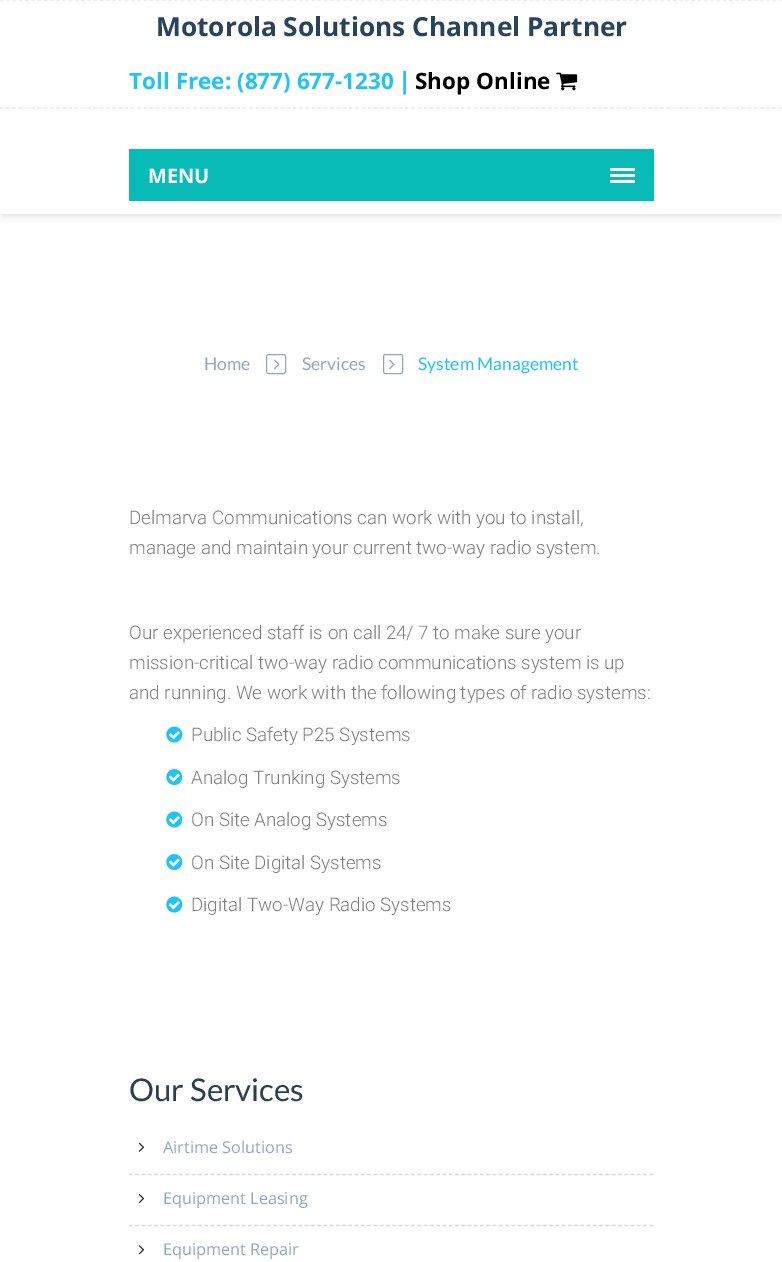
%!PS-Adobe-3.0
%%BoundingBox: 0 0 782 1262
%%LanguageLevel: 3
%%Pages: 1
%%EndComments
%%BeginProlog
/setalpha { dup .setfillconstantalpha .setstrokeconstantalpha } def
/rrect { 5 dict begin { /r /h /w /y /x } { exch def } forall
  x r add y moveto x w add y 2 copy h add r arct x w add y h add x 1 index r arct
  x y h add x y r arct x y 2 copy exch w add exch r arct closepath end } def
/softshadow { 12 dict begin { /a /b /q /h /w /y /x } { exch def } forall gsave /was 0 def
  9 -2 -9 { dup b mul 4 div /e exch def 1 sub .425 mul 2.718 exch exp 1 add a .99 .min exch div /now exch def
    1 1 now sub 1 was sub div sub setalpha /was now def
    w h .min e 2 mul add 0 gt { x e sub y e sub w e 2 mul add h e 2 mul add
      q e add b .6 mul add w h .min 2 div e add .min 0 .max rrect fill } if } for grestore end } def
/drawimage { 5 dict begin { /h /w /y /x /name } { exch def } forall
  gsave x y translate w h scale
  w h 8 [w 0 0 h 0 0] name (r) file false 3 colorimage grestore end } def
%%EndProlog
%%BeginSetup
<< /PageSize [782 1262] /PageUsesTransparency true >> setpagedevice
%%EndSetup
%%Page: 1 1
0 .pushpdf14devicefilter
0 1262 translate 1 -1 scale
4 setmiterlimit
1 setgray
0 0 782 1262 rectfill
0.929 setgray
1.2 setlinewidth
[3.75 2.48] 0 setdash
newpath 0 0.5 moveto 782.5 0.5 lineto stroke
newpath 0 108 moveto 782.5 108 lineto stroke
(images/1.raw) 556 72 22 19 drawimage
0 setgray
3 115 777 100 0 4 0.15 softshadow
1 setgray
0 109 782 105 rectfill
0.031 0.733 0.718 setrgbcolor
129 149 525 52 rectfill
1 setgray
610 174 25 3 rectfill
610 168 25 3 rectfill
610 180 25 3 rectfill
0.573 0.655 0.733 setrgbcolor
1 setlinewidth
[] 0 setdash
266.5 354.5 19 19 2 rrect stroke
(images/2.raw) 274 359 6 11 drawimage
383.5 354.5 19 19 2 rrect stroke
(images/2.raw) 389 359 6 11 drawimage
(images/3.raw) 166 726 17 17 drawimage
(images/4.raw) 166 769 17 17 drawimage
(images/3.raw) 166 811 17 17 drawimage
(images/4.raw) 166 854 17 17 drawimage
(images/3.raw) 166 896 17 17 drawimage
0.851 setgray
1.2 setlinewidth
[3.75 2.52] 0 setdash
newpath 129 1174.5 moveto 654 1174.5 lineto stroke
(images/5.raw) 138 1142 7 10 drawimage
newpath 129 1225.5 moveto 654 1225.5 lineto stroke
(images/6.raw) 138 1194 7 9 drawimage
(images/7.raw) 138 1245 7 10 drawimage
/OpenSans-Bold [26.25 0 0 -26.25 0 0] selectfont
0.165 0.263 0.365 setrgbcolor
156 36 moveto (Motorola Solutions Channel Partner) show
/OpenSans-Bold [22.5 0 0 -22.5 0 0] selectfont
0.129 0.761 0.973 setrgbcolor
129 89 moveto (Toll Free: \(877\) 677-1230) show
/OpenSans-Bold [24 0 0 -24 0 0] selectfont
398 89 moveto (|) show
/OpenSans-Bold [22.5 0 0 -22.5 0 0] selectfont
0 setgray
415 89 moveto (Shop Online) show
/OpenSans-Bold [20 0 0 -20 0 0] selectfont
1 setgray
148 183 moveto (MENU) show
/Lato-Regular [17.5 0 0 -17.5 0 0] selectfont
0.573 0.655 0.733 setrgbcolor
204 370 moveto (Home) show
302 370 moveto (Services) show
0.129 0.761 0.973 setrgbcolor
418 370 moveto (System Management) show
/Roboto-Light [18.75 0 0 -18.75 0 0] selectfont
0.494 setgray
129 524 moveto (Delmarva Communications can work with you to install,) show
129 554 moveto (manage and maintain your current two-way radio system.) show
129 639 moveto (Our experienced staff is on call 24/ 7 to make sure your) show
129 669 moveto (mission-critical two-way radio communications system is up) show
129 699 moveto (and running. We work with the following types of radio systems:) show
191 741 moveto (Public Safety P25 Systems) show
191 784 moveto (Analog Trunking Systems) show
191 826 moveto (On Site Analog Systems) show
191 869 moveto (On Site Digital Systems) show
191 911 moveto (Digital Two-Way Radio Systems) show
/Lato-Regular [31.25 0 0 -31.25 0 0] selectfont
0.173 0.243 0.314 setrgbcolor
129 1101 moveto (Our Services) show
/OpenSans-Regular [16.25 0 0 -16.25 0 0] selectfont
0.573 0.655 0.733 setrgbcolor
163 1153 moveto (Airtime Solutions) show
163 1204 moveto (Equipment Leasing) show
163 1255 moveto (Equipment Repair) show
.poppdf14devicefilter showpage
%%EOF
